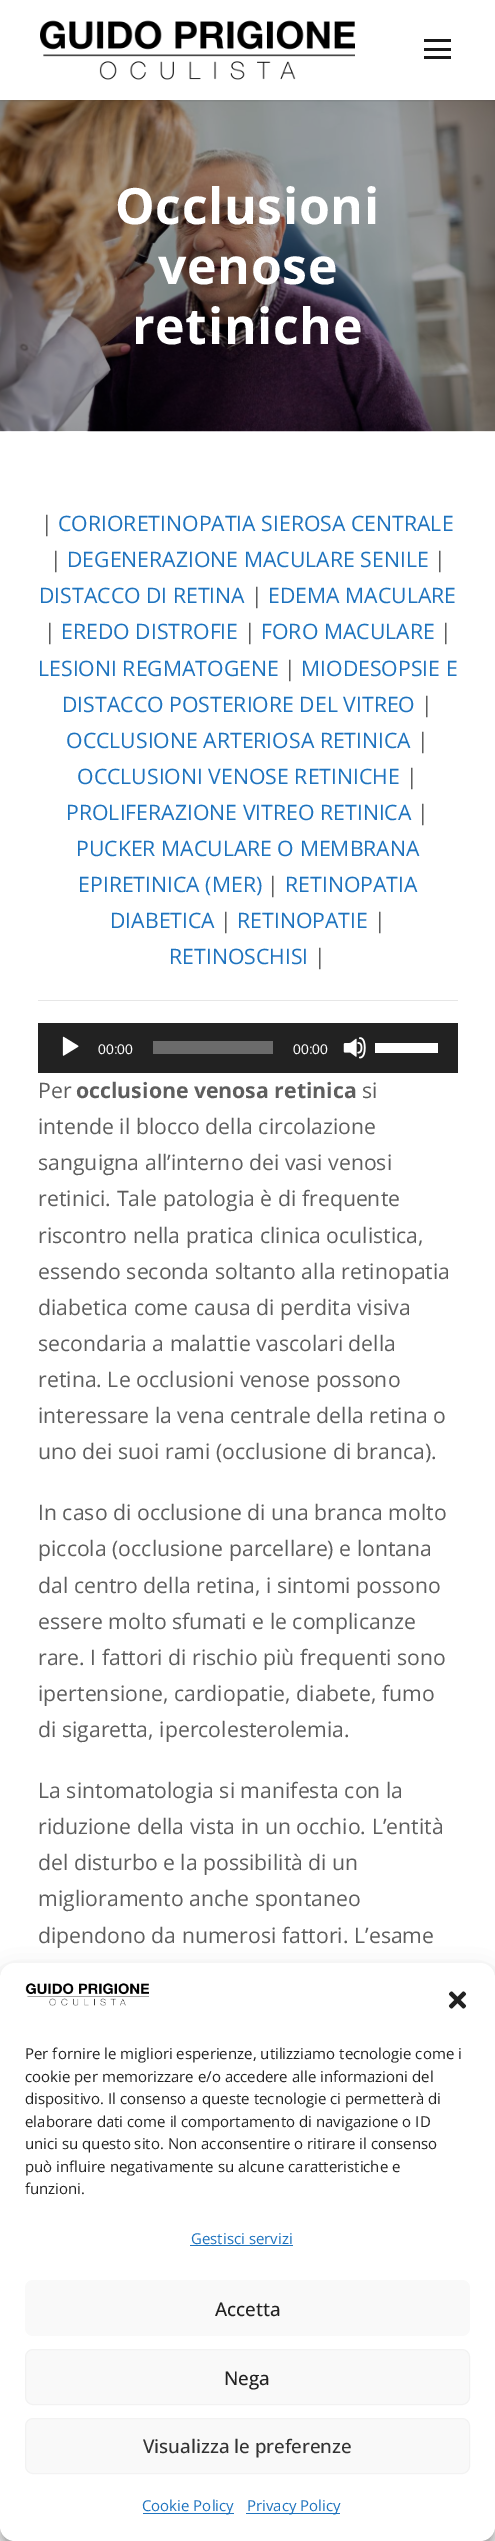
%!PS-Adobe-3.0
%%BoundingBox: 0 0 495 2541
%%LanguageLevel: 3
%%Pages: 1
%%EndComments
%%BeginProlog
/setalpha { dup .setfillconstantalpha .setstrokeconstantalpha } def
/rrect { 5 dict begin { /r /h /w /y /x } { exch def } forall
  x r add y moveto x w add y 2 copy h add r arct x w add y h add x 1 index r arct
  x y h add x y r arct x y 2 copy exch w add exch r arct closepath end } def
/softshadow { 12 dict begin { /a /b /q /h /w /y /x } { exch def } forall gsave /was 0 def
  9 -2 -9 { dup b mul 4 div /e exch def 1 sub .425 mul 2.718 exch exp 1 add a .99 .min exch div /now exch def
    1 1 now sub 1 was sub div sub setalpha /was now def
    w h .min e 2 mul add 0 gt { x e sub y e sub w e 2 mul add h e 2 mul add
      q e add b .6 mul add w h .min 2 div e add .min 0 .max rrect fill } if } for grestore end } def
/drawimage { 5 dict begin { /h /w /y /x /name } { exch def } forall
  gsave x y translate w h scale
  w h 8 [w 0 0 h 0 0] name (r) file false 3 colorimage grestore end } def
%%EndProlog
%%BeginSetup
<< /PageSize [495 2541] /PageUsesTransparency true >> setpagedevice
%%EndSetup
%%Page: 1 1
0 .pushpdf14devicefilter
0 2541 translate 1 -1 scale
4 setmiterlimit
1 setgray
0 0 495 2541 rectfill
(images/2.raw) 0 100 495 332 drawimage
gsave
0 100 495 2 rectclip
0 setgray
0 1 495 100 0 1 0.1 softshadow
grestore
(images/1.raw) 40 20 315 60 drawimage
0.098 setgray
424 39 27 3 rectfill
424 48 27 3 rectfill
424 56 27 3 rectfill
0.902 setgray
38 1000 420 1 rectfill
0.133 setgray
38 1023 420 50 rectfill
(images/3.raw) 62 1036 17 20 drawimage
0.42 setgray
153 1041 120 13 rectfill
(images/4.raw) 343 1037 23 22 drawimage
1 setgray
375 1043 63 10 rectfill
0 setgray
0 1970 495 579 15 4 0.23 softshadow
0 1975 495 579 15 12.5 0.19 softshadow
1 setgray
0 1963 495 578 15 rrect fill
(images/5.raw) 25 1983 124 23 drawimage
(images/6.raw) 448 1991 19 18 drawimage
0.118 0.451 0.745 setrgbcolor
190 2245 103 1 rectfill
0.976 setgray
25 2280 445 56 8 rrect fill
25.5 2349.5 444 55 7.5 rrect gsave fill grestore
0.949 setgray
stroke
0.976 setgray
25.5 2418.5 444 55 7.5 rrect gsave fill grestore
0.949 setgray
stroke
0.118 0.451 0.745 setrgbcolor
143 2513 91 1 rectfill
246 2513 94 1 rectfill
/OpenSans-Bold [50 0 0 -50 0 0] selectfont
1 setgray
115 224 moveto 0.6 0 (Occlusioni) ashow
158 284 moveto 0.6 0 (venose) ashow
132 344 moveto 0.6 0 (retiniche) ashow
/OpenSans-Regular [21.25 0 0 -21.25 0 0] selectfont
0.369 setgray
41 531 moveto (|) show
0.118 0.451 0.745 setrgbcolor
58 531 moveto (CORIORETINOPATIA SIEROSA CENTRALE) show
0.369 setgray
50 567 moveto (|) show
0.118 0.451 0.745 setrgbcolor
67 567 moveto (DEGENERAZIONE MACULARE SENILE) show
0.369 setgray
434 567 moveto (|) show
0.118 0.451 0.745 setrgbcolor
39 603 moveto (DISTACCO DI RETINA) show
0.369 setgray
251 603 moveto (|) show
0.118 0.451 0.745 setrgbcolor
268 603 moveto (EDEMA MACULARE) show
0.369 setgray
44 639 moveto (|) show
0.118 0.451 0.745 setrgbcolor
61 639 moveto (EREDO DISTROFIE) show
0.369 setgray
244 639 moveto (|) show
0.118 0.451 0.745 setrgbcolor
261 639 moveto (FORO MACULARE) show
0.369 setgray
440 639 moveto (|) show
0.118 0.451 0.745 setrgbcolor
38 676 moveto (LESIONI REGMATOGENE) show
0.369 setgray
284 676 moveto (|) show
0.118 0.451 0.745 setrgbcolor
301 676 moveto (MIODESOPSIE E) show
62 712 moveto (DISTACCO POSTERIORE DEL VITREO) show
0.369 setgray
421 712 moveto (|) show
0.118 0.451 0.745 setrgbcolor
66 748 moveto (OCCLUSIONE ARTERIOSA RETINICA) show
0.369 setgray
417 748 moveto (|) show
0.118 0.451 0.745 setrgbcolor
77 784 moveto (OCCLUSIONI VENOSE RETINICHE) show
0.369 setgray
406 784 moveto (|) show
0.118 0.451 0.745 setrgbcolor
66 820 moveto (PROLIFERAZIONE VITREO RETINICA) show
0.369 setgray
417 820 moveto (|) show
0.118 0.451 0.745 setrgbcolor
76 856 moveto (PUCKER MACULARE O MEMBRANA) show
78 892 moveto (EPIRETINICA \(MER\)) show
0.369 setgray
267 892 moveto (|) show
0.118 0.451 0.745 setrgbcolor
285 892 moveto (RETINOPATIA) show
110 928 moveto (DIABETICA) show
0.369 setgray
220 928 moveto (|) show
0.118 0.451 0.745 setrgbcolor
237 928 moveto (RETINOPATIE) show
0.369 setgray
374 928 moveto (|) show
0.118 0.451 0.745 setrgbcolor
169 964 moveto (RETINOSCHISI) show
0.369 setgray
314 964 moveto (|) show
/LiberationSans-Regular [14 0 0 -14 0 0] selectfont
1 setgray
98 1054 moveto (00:00) show
293 1054 moveto (00:00) show
/OpenSans-Regular [21.25 0 0 -21.25 0 0] selectfont
0.369 setgray
38 1098 moveto (Per) show
/OpenSans-Bold [21.25 0 0 -21.25 0 0] selectfont
76 1098 moveto (occlusione venosa retinica) show
/OpenSans-Regular [21.25 0 0 -21.25 0 0] selectfont
362 1098 moveto (si) show
38 1134 moveto (intende il blocco della circolazione) show
38 1170 moveto (sanguigna all’interno dei vasi venosi) show
38 1206 moveto (retinici. Tale patologia è di frequente) show
38 1243 moveto (riscontro nella pratica clinica oculistica,) show
38 1279 moveto (essendo seconda soltanto alla retinopatia) show
38 1315 moveto (diabetica come causa di perdita visiva) show
38 1351 moveto (secondaria a malattie vascolari della) show
38 1387 moveto (retina. Le occlusioni venose possono) show
38 1423 moveto (interessare la vena centrale della retina o) show
38 1459 moveto (uno dei suoi rami \(occlusione di branca\).) show
38 1520 moveto (In caso di occlusione di una branca molto) show
38 1556 moveto (piccola \(occlusione parcellare\) e lontana) show
38 1593 moveto (dal centro della retina, i sintomi possono) show
38 1629 moveto (essere molto sfumati e le complicanze) show
38 1665 moveto (rare. I fattori di rischio più frequenti sono) show
38 1701 moveto (ipertensione, cardiopatie, diabete, fumo) show
38 1737 moveto (di sigaretta, ipercolesterolemia.) show
38 1798 moveto (La sintomatologia si manifesta con la) show
38 1834 moveto (riduzione della vista in un occhio. L’entità) show
38 1870 moveto (del disturbo e la possibilità di un) show
38 1906 moveto (miglioramento anche spontaneo) show
38 1943 moveto (dipendono da numerosi fattori. L’esame) show
/OpenSans-Regular [15 0 0 -15 0 0] selectfont
0.133 setgray
25 2059 moveto (Per fornire le migliori esperienze, utilizziamo tecnologie come i) show
25 2082 moveto (cookie per memorizzare e/o accedere alle informazioni del) show
25 2104 moveto (dispositivo. Il consenso a queste tecnologie ci permetterà di) show
25 2127 moveto (elaborare dati come il comportamento di navigazione o ID) show
25 2149 moveto (unici su questo sito. Non acconsentire o ritirare il consenso) show
25 2172 moveto (può influire negativamente su alcune caratteristiche e) show
25 2194 moveto (funzioni.) show
0.118 0.451 0.745 setrgbcolor
191 2244 moveto (Gestisci servizi) show
/OpenSans-Medium [18.75 0 0 -18.75 0 0] selectfont
0.133 setgray
215 2316 moveto (Accetta) show
224 2385 moveto (Nega) show
0.2 setgray
143 2453 moveto (Visualizza le preferenze) show
/OpenSans-Regular [15 0 0 -15 0 0] selectfont
0.118 0.451 0.745 setrgbcolor
142 2511 moveto (Cookie Policy) show
247 2511 moveto (Privacy Policy) show
.poppdf14devicefilter showpage
%%EOF
